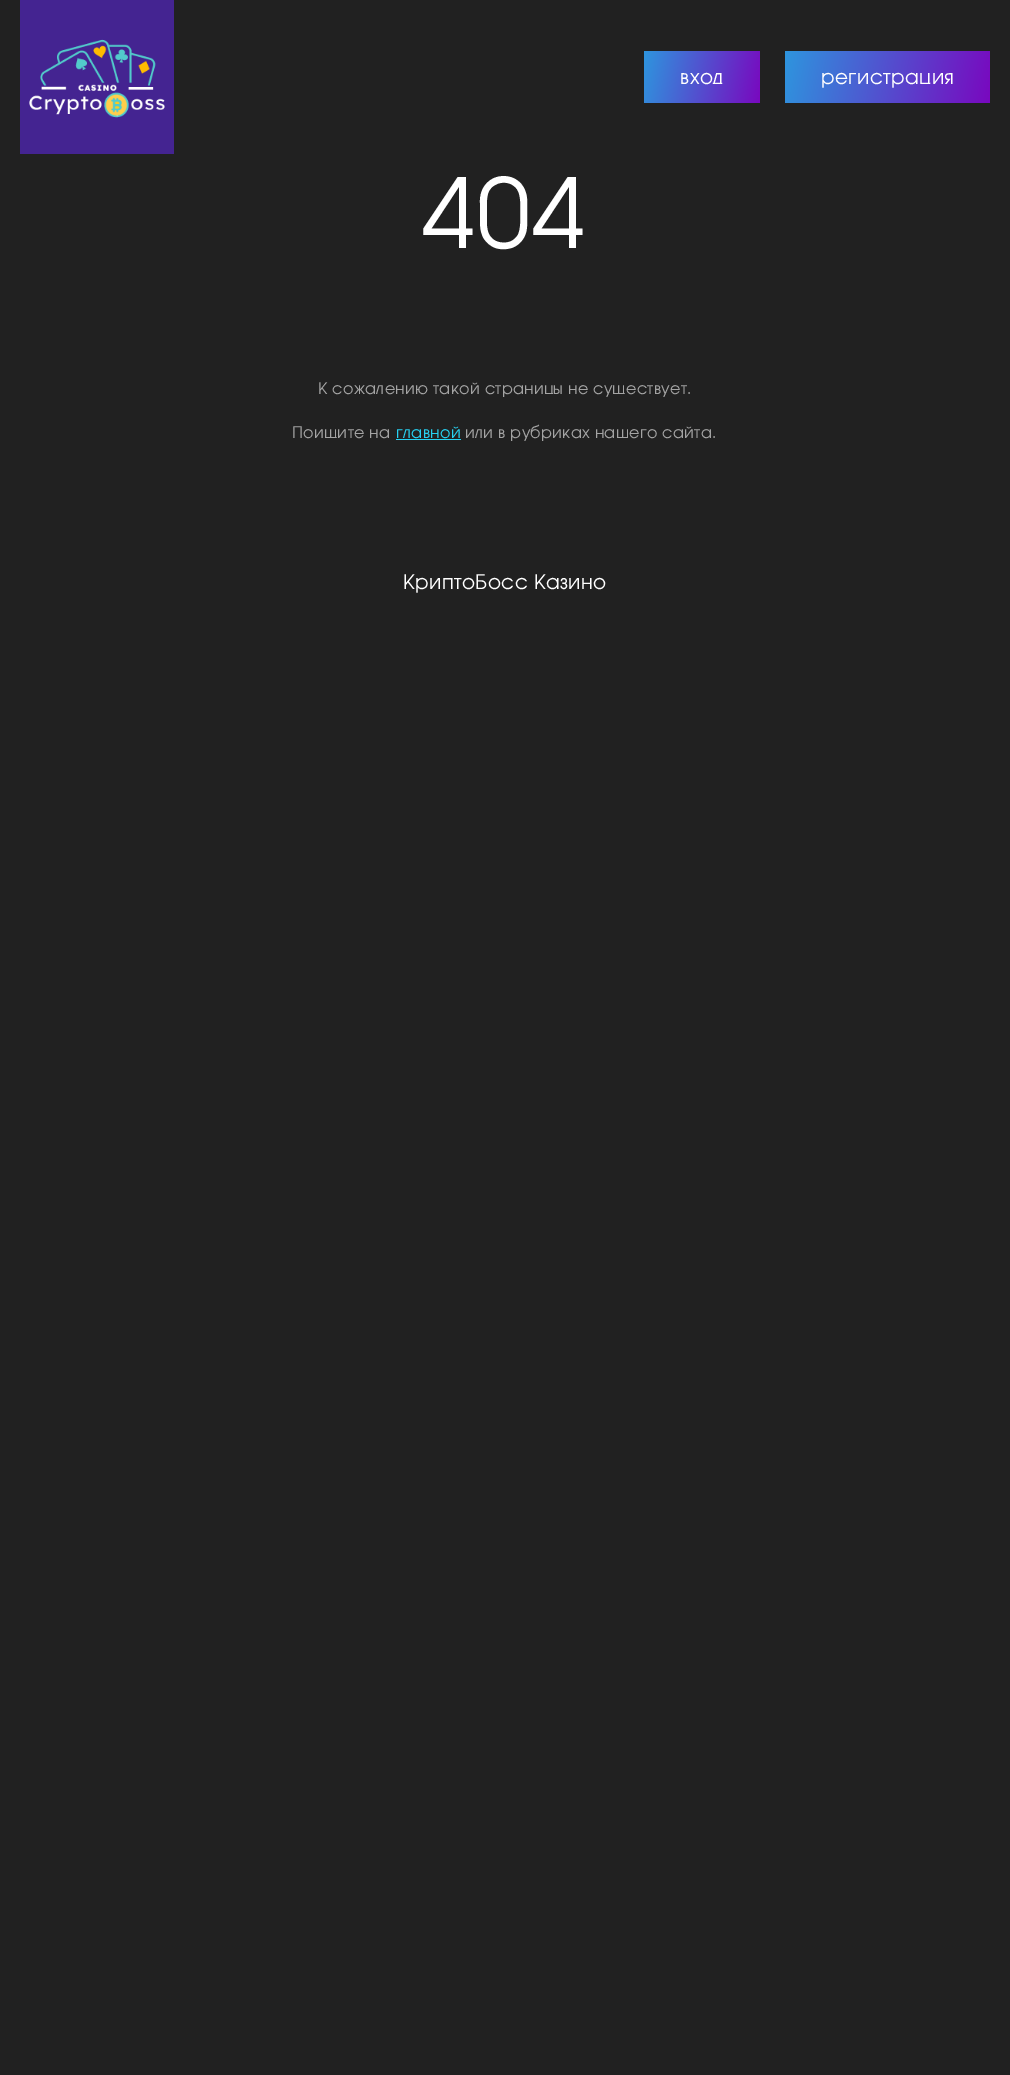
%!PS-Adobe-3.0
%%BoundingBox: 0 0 1010 2075
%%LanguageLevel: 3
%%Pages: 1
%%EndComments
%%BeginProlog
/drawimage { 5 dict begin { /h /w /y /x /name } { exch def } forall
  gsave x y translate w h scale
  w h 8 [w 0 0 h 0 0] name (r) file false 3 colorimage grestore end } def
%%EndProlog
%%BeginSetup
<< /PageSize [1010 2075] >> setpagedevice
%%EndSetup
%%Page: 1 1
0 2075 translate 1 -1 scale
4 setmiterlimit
0.129 setgray
0 0 1010 2075 rectfill
(images/1.raw) 20 0 154 154 drawimage
gsave newpath 644 51 moveto 760 51 lineto 760 103 lineto 644 103 lineto closepath clip newpath
<< /ShadingType 2 /ColorSpace /DeviceRGB /Coords [641 65 763 89] /Extend [true true] /Function << /FunctionType 2 /Domain [0 1] /C0 [0.18 0.584 0.871] /C1 [0.475 0.031 0.749] /N 1 >> >> shfill grestore
gsave newpath 785 51 moveto 990 51 lineto 990 103 lineto 785 103 lineto closepath clip newpath
<< /ShadingType 2 /ColorSpace /DeviceRGB /Coords [784 56 991 98] /Extend [true true] /Function << /FunctionType 2 /Domain [0 1] /C0 [0.18 0.584 0.871] /C1 [0.475 0.031 0.749] /N 1 >> >> shfill grestore
0.153 0.824 0.949 setrgbcolor
396 439 65 1 rectfill
/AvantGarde-Regular [20 0 0 -20 0 0] selectfont
1 setgray
680 84 moveto 0.4 0 (вход) ashow
821 84 moveto 0.4 0 (регистрация) ashow
/AvantGarde-Regular [96 0 0 -96 0 0] selectfont
422 248 moveto 2 0 (404) ashow
/AvantGarde-Regular [16 0 0 -16 0 0] selectfont
0.643 setgray
318 394 moveto 0.3 0 (К сожалению такой страницы не существует.) ashow
292 438 moveto 0.3 0 (Поищите на) ashow
0.153 0.824 0.949 setrgbcolor
396 438 moveto 0.3 0 (главной) ashow
0.643 setgray
465 438 moveto 0.3 0 (или в рубриках нашего сайта.) ashow
/AvantGarde-Regular [20 0 0 -20 0 0] selectfont
1 setgray
403 589 moveto 0.4 0 (КриптоБосс Казино) ashow
showpage
%%EOF
